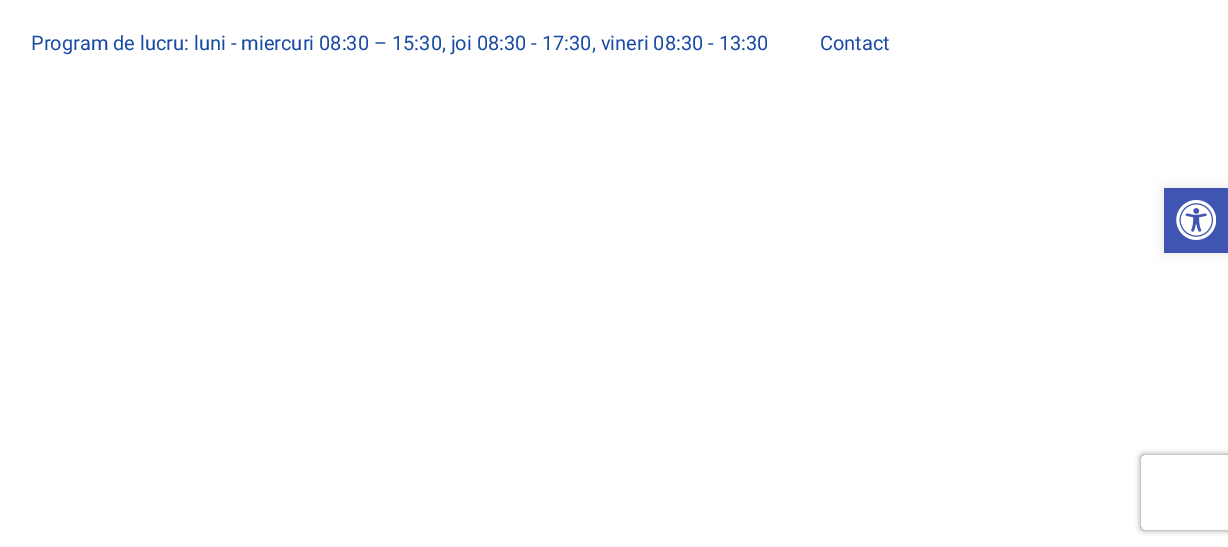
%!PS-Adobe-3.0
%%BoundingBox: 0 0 1228 547
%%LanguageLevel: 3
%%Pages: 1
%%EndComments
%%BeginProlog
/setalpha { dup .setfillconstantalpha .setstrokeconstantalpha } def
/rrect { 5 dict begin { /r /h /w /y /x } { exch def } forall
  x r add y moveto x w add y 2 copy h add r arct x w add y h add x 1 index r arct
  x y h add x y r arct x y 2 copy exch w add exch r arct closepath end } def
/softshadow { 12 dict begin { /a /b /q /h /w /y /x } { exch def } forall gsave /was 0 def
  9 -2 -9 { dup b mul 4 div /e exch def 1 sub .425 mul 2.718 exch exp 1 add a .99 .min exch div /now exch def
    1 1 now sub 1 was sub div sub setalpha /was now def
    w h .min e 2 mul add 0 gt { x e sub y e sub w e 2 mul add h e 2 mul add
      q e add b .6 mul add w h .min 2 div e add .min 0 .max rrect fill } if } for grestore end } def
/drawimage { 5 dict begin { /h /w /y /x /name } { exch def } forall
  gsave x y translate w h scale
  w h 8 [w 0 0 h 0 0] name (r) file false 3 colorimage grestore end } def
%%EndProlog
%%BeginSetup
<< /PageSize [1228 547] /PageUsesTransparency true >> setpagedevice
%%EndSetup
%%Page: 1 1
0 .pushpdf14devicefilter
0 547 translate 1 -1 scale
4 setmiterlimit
1 setgray
0 0 1228 547 rectfill
0 setgray
1164 188 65 65 0 6 0.1 softshadow
0.251 0.329 0.698 setrgbcolor
1164 188 64 65 rectfill
(images/1.raw) 1176 200 40 40 drawimage
gsave
newpath 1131 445 moveto 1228 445 lineto 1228 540 lineto 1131 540 lineto closepath 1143.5 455 moveto 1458.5 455 lineto 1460 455 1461 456 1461 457.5 curveto 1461 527.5 lineto 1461 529 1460 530 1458.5 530 curveto 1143.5 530 lineto 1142 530 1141 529 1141 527.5 curveto 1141 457.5 lineto 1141 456 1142 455 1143.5 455 curveto closepath eoclip newpath
0.502 setgray
1141 455 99 75 2.5 3 1 softshadow
grestore
/Roboto-Regular [20 0 0 -20 0 0] selectfont
0.094 0.294 0.631 setrgbcolor
31 50 moveto (Program de lucru: luni - miercuri 08:30 – 15:30, joi 08:30 - 17:30, vineri 08:30 - 13:30) show
820 50 moveto (Contact) show
.poppdf14devicefilter showpage
%%EOF
